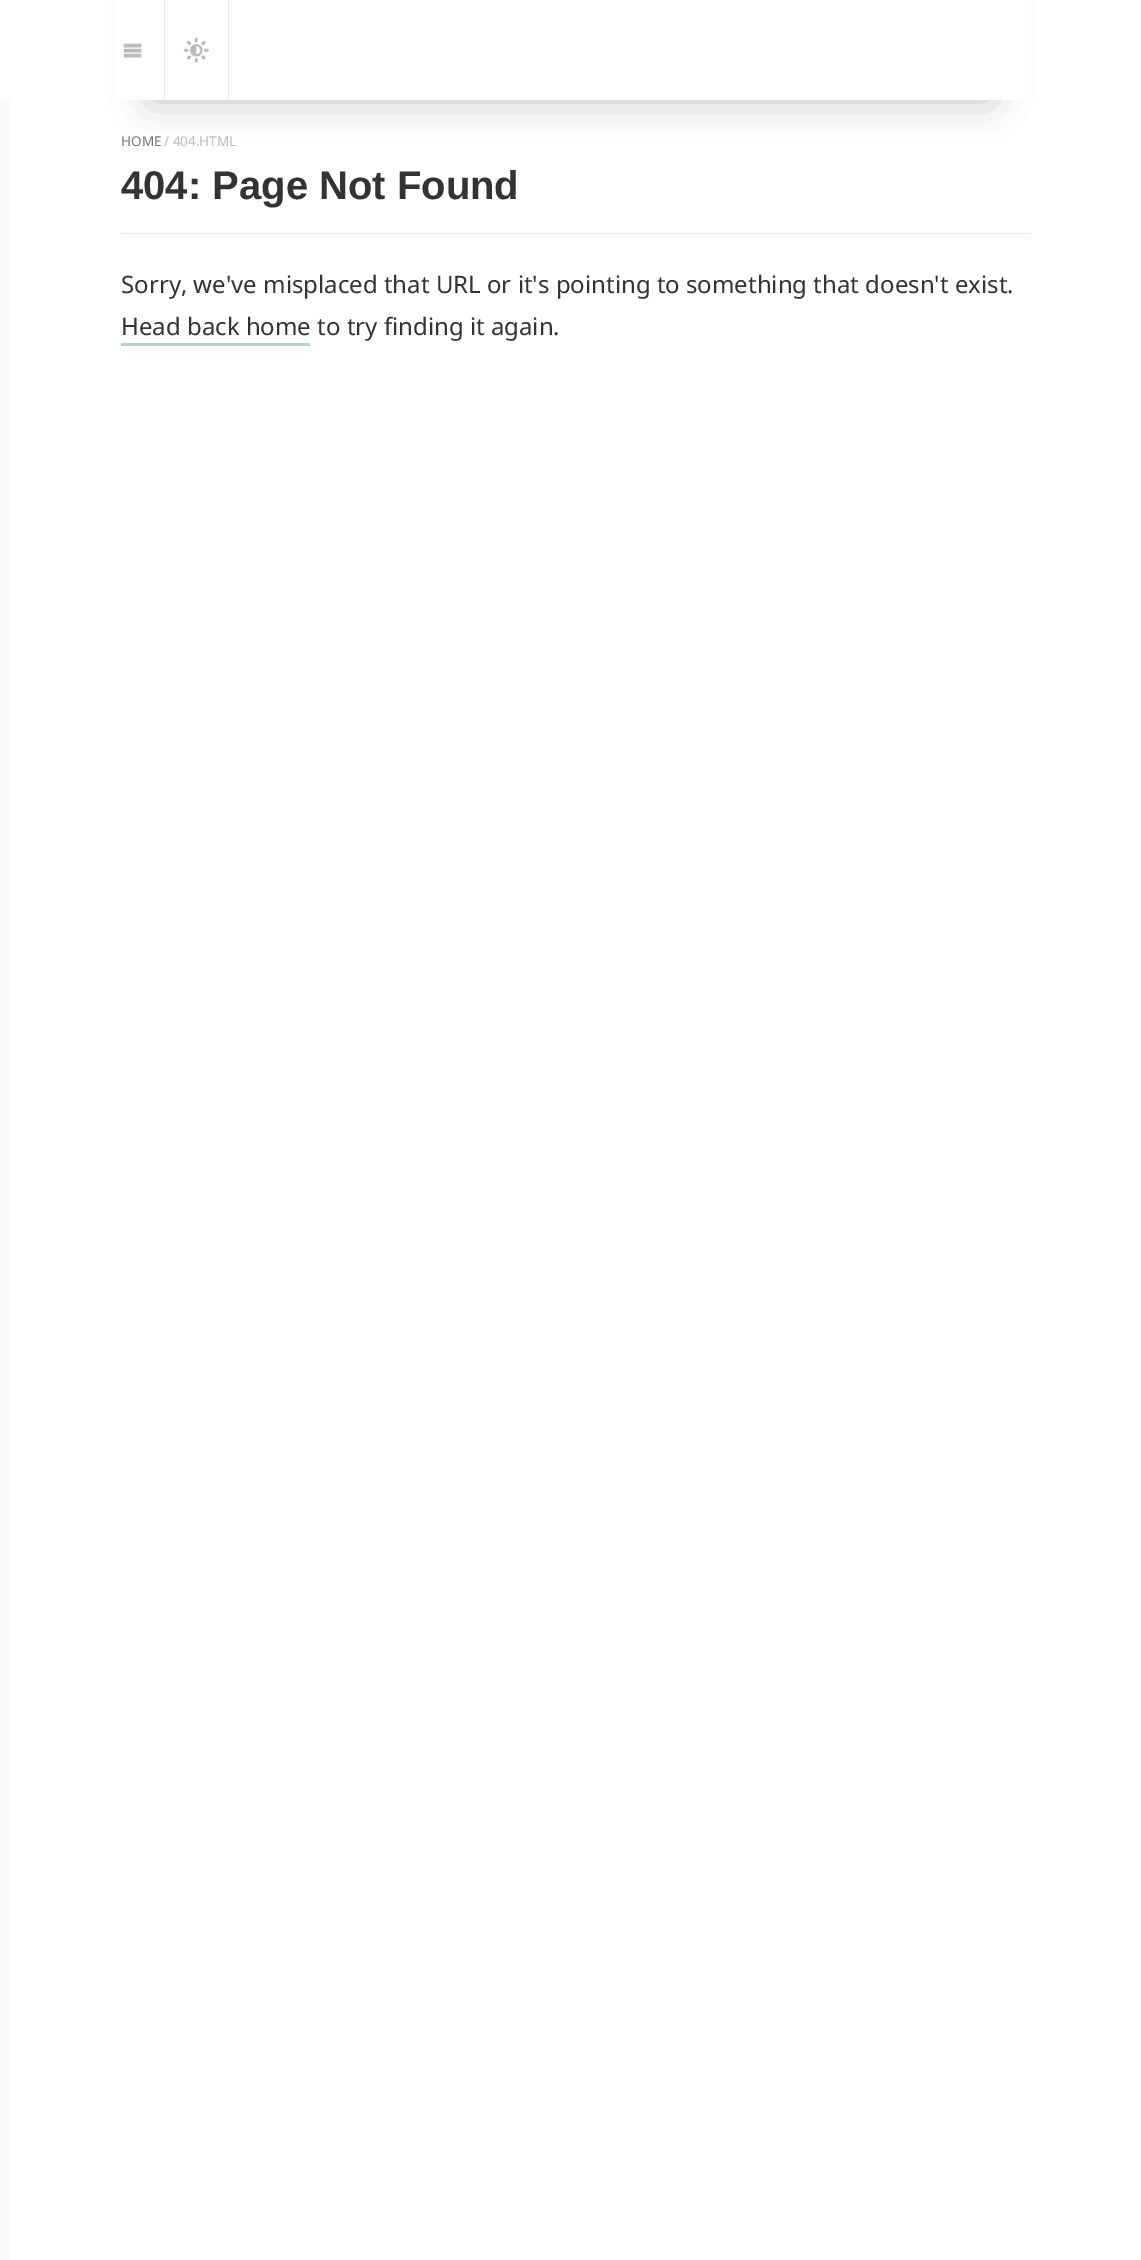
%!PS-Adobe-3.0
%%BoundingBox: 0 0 1141 2260
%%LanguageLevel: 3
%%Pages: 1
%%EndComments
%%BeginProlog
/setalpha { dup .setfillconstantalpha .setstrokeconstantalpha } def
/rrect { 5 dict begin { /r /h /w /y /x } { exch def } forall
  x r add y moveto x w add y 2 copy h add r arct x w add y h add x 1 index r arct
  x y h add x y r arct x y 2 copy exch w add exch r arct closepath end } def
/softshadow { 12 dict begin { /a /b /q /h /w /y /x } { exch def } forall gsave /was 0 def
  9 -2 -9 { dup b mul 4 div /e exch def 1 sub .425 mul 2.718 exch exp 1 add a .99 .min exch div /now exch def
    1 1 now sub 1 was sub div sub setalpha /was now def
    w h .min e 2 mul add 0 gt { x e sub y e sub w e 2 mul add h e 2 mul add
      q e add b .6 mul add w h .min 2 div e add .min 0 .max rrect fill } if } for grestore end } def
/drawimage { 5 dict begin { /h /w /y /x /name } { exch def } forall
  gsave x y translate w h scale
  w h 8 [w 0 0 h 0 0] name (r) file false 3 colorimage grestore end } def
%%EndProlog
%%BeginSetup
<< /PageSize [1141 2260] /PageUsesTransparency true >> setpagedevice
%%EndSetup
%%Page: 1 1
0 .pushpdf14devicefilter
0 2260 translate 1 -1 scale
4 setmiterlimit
1 setgray
0 0 1141 2260 rectfill
0.976 setgray
0 100 10 2160 rectfill
0 setgray
151 -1 840 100 0 20 0.25 softshadow
1 setgray
116 0 910 100 rectfill
(images/1.raw) 123 43 19 15 drawimage
0.922 setgray
228 0 1 100 rectfill
164 0 1 100 rectfill
(images/2.raw) 183 37 26 26 drawimage
121 233 910 1 rectfill
0.655 0.847 0.867 setrgbcolor
121 343 189 3 rectfill
/NotoSans-Regular [13.5 0 0 -13.5 0 0] selectfont
0.467 setgray
121 146 moveto (HOME) show
0.733 setgray
164 146 moveto (/ 404.HTML) show
/LiberationSans-Bold [40 0 0 -40 0 0] selectfont
0.2 setgray
121 199 moveto (404: Page Not Found) show
/NotoSans-Regular [24 0 0 -24 0 0] selectfont
121 293 moveto (Sorry, we've misplaced that URL or it's pointing to something that doesn't exist.) show
121 335 moveto (Head back home to try finding it again.) show
.poppdf14devicefilter showpage
%%EOF
